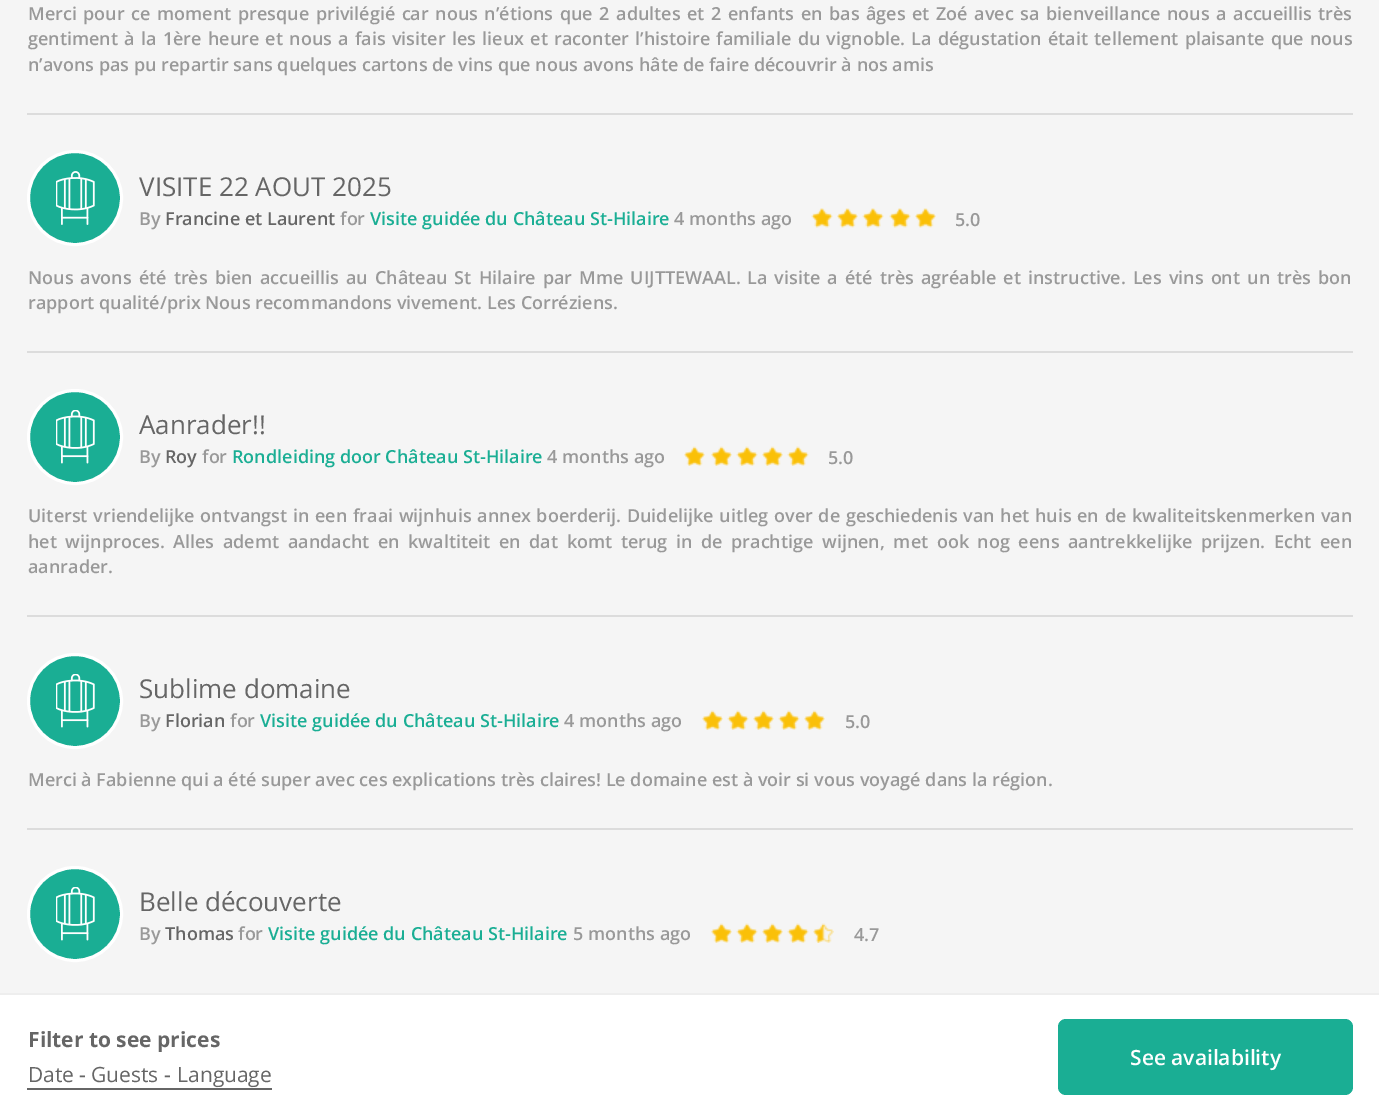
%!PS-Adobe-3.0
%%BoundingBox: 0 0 1379 1118
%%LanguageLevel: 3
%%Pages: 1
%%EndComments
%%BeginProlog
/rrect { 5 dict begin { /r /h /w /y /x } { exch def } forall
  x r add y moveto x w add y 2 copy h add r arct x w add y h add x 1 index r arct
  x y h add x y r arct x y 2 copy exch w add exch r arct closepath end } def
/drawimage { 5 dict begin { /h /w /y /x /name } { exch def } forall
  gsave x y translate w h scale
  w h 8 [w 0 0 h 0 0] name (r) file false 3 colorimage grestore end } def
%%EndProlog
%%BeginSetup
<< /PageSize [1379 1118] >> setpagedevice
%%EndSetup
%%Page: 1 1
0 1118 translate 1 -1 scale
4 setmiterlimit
0.961 setgray
0 0 1379 1118 rectfill
0.863 setgray
27 113 1326 2 rectfill
0.102 0.682 0.58 setrgbcolor
newpath 75 198 46.5 0 360 arc closepath gsave fill grestore
1 setgray
3 setlinewidth
stroke
(images/1.raw) 56 171 39 54 drawimage
(images/2.raw) 811 208 22 20 drawimage
(images/3.raw) 837 208 21 20 drawimage
(images/2.raw) 862 208 22 20 drawimage
(images/2.raw) 889 208 22 20 drawimage
(images/3.raw) 915 208 21 20 drawimage
0.863 setgray
27 351 1326 2 rectfill
0.102 0.682 0.58 setrgbcolor
newpath 75 437 46.5 0 360 arc closepath gsave fill grestore
1 setgray
stroke
(images/4.raw) 56 410 39 54 drawimage
(images/5.raw) 684 446 21 20 drawimage
(images/6.raw) 711 446 21 20 drawimage
(images/7.raw) 736 446 22 20 drawimage
(images/5.raw) 762 446 21 20 drawimage
(images/8.raw) 787 446 22 20 drawimage
0.863 setgray
27 615 1326 2 rectfill
0.102 0.682 0.58 setrgbcolor
newpath 75 701 46.5 0 360 arc closepath gsave fill grestore
1 setgray
stroke
(images/4.raw) 56 674 39 54 drawimage
(images/6.raw) 702 710 21 20 drawimage
(images/7.raw) 727 710 22 20 drawimage
(images/9.raw) 753 710 21 20 drawimage
(images/8.raw) 778 710 22 20 drawimage
(images/5.raw) 804 710 21 20 drawimage
0.863 setgray
27 828 1326 2 rectfill
0.102 0.682 0.58 setrgbcolor
newpath 75 914 46.5 0 360 arc closepath gsave fill grestore
1 setgray
stroke
(images/4.raw) 56 887 39 54 drawimage
(images/6.raw) 711 923 21 20 drawimage
(images/7.raw) 736 923 22 20 drawimage
(images/5.raw) 762 923 21 20 drawimage
(images/8.raw) 787 923 22 20 drawimage
(images/10.raw) 813 923 21 20 drawimage
0 995 1379 123 rectfill
0.933 setgray
0 993 1379 2 rectfill
0.4 setgray
27 1088 245 2 rectfill
0.102 0.682 0.58 setrgbcolor
1058 1019 295 76 8 rrect fill
/OpenSans-SemiBold [18 0 0 -18 0 0] selectfont
0.6 setgray
28 20 moveto 1.9 0 32 (Merci pour ce moment presque privilégié car nous n’étions que 2 adultes et 2 enfants en bas âges et Zoé avec sa bienveillance nous a accueillis) widthshow
1318 20 moveto (très) show
28 45 moveto 1.6 0 32 (gentiment à la 1ère heure et nous a fais visiter les lieux et raconter l’histoire familiale du vignoble. La dégustation était tellement plaisante que nous) widthshow
28 71 moveto (n’avons pas pu repartir sans quelques cartons de vins que nous avons hâte de faire découvrir à nos amis) show
/OpenSans-Regular [26 0 0 -26 0 0] selectfont
0.4 setgray
139 196 moveto (VISITE 22 AOUT 2025) show
/OpenSans-SemiBold [18 0 0 -18 0 0] selectfont
0.6 setgray
139 225 moveto (By) show
0.4 setgray
165 225 moveto (Francine et Laurent) show
0.6 setgray
340 225 moveto (for) show
0.102 0.682 0.58 setrgbcolor
370 225 moveto (Visite guidée du Château St-Hilaire) show
0.6 setgray
674 225 moveto (4 months ago) show
955 226 moveto (5.0) show
28 284 moveto 2.4 0 32 (Nous avons été très bien accueillis au Château St Hilaire par Mme UIJTTEWAAL.) widthshow
747 284 moveto 2.4 0 32 (La visite a été très agréable et instructive. Les vins ont un très bon) widthshow
28 309 moveto (rapport qualité/prix Nous recommandons vivement. Les Corréziens.) show
/OpenSans-Regular [26 0 0 -26 0 0] selectfont
0.4 setgray
139 434 moveto (Aanrader!!) show
/OpenSans-SemiBold [18 0 0 -18 0 0] selectfont
0.6 setgray
139 463 moveto (By) show
0.4 setgray
165 463 moveto (Roy) show
0.6 setgray
202 463 moveto (for) show
0.102 0.682 0.58 setrgbcolor
232 463 moveto (Rondleiding door Château St-Hilaire) show
0.6 setgray
547 463 moveto (4 months ago) show
828 464 moveto (5.0) show
28 522 moveto 1 0 32 (Uiterst vriendelijke ontvangst in een fraai wijnhuis annex boerderij. Duidelijke uitleg over de geschiedenis van het huis en de kwaliteitskenmerken van) widthshow
28 548 moveto 3.9 0 32 (het wijnproces. Alles ademt aandacht en kwaltiteit en dat komt terug in de prachtige wijnen, met ook nog eens aantrekkelijke prijzen. Echt een) widthshow
28 573 moveto (aanrader.) show
/OpenSans-Regular [26 0 0 -26 0 0] selectfont
0.4 setgray
139 698 moveto (Sublime domaine) show
/OpenSans-SemiBold [18 0 0 -18 0 0] selectfont
0.6 setgray
139 727 moveto (By) show
0.4 setgray
165 727 moveto (Florian) show
0.6 setgray
230 727 moveto (for) show
0.102 0.682 0.58 setrgbcolor
260 727 moveto (Visite guidée du Château St-Hilaire) show
0.6 setgray
564 727 moveto (4 months ago) show
845 728 moveto (5.0) show
28 786 moveto (Merci à Fabienne qui a été super avec ces explications très claires! Le domaine est à voir si vous voyagé dans la région.) show
/OpenSans-Regular [26 0 0 -26 0 0] selectfont
0.4 setgray
139 911 moveto (Belle découverte) show
/OpenSans-SemiBold [18 0 0 -18 0 0] selectfont
0.6 setgray
139 940 moveto (By) show
0.4 setgray
165 940 moveto (Thomas) show
0.6 setgray
238 940 moveto (for) show
0.102 0.682 0.58 setrgbcolor
268 940 moveto (Visite guidée du Château St-Hilaire) show
0.6 setgray
573 940 moveto (5 months ago) show
854 941 moveto (4.7) show
/OpenSans-Bold [21 0 0 -21 0 0] selectfont
0.4 setgray
28 1047 moveto (Filter to see prices) show
/OpenSans-Regular [21 0 0 -21 0 0] selectfont
28 1082 moveto (Date) show
/NotoSans-Regular [21 0 0 -21 0 0] selectfont
79 1082 moveto (-) show
/OpenSans-Regular [21 0 0 -21 0 0] selectfont
91 1082 moveto (Guests) show
/NotoSans-Regular [21 0 0 -21 0 0] selectfont
164 1082 moveto (-) show
/OpenSans-Regular [21 0 0 -21 0 0] selectfont
177 1082 moveto (Language) show
/OpenSans-SemiBold [21 0 0 -21 0 0] selectfont
1 setgray
1130 1065 moveto (See availability) show
showpage
%%EOF
